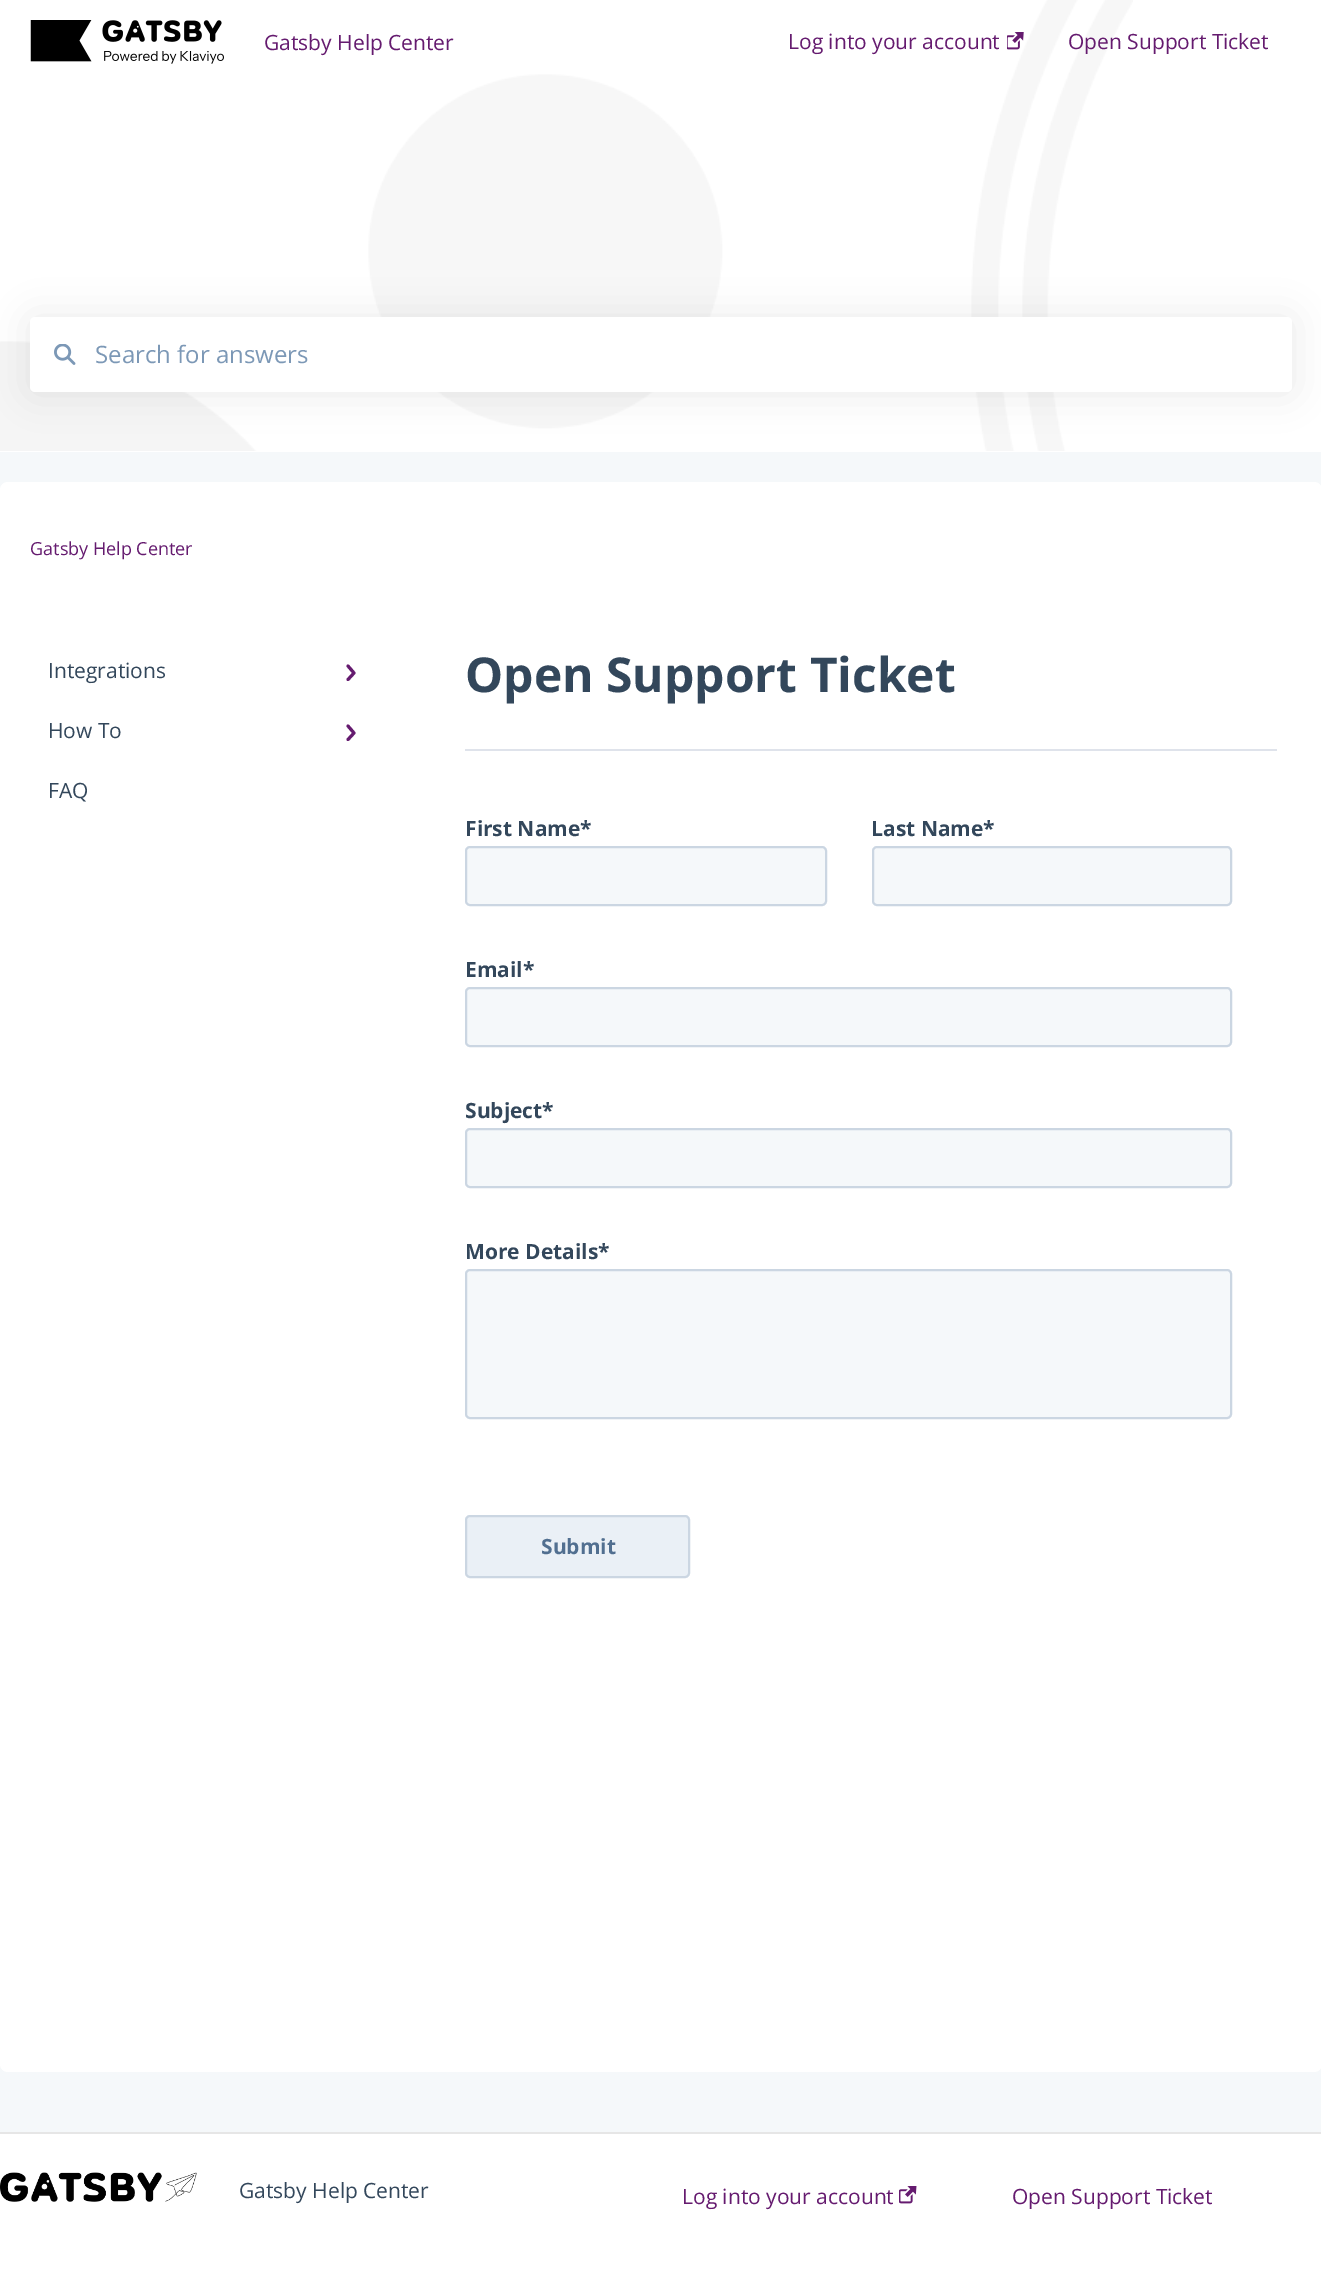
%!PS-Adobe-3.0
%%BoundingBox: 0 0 1321 2279
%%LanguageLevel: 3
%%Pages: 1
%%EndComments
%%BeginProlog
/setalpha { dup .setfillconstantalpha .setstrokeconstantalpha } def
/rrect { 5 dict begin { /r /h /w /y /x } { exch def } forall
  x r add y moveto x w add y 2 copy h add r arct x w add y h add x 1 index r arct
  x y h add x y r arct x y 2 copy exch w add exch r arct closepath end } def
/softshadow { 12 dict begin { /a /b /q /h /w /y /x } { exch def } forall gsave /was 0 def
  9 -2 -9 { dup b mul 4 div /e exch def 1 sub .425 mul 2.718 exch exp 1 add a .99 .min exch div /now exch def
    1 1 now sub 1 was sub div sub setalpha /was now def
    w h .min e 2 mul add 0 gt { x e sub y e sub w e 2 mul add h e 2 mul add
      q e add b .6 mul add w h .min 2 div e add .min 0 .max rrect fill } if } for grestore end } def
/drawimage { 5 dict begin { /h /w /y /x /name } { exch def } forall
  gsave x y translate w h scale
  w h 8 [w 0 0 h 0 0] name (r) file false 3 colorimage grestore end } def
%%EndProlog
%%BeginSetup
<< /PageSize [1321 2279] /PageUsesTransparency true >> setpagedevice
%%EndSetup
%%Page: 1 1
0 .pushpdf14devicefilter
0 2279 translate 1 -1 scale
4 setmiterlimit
0.961 0.973 0.98 setrgbcolor
0 0 1321 2279 rectfill
1 setgray
0 0 1321 452 rectfill
(images/3.raw) 0 0 1133 451 drawimage
(images/1.raw) 30 20 194 44 drawimage
(images/2.raw) 1007 32 17 18 drawimage
0 setgray
30 318 1262 75 5 18 0.08 softshadow
1 setgray
30 317 1262 75 5 rrect fill
(images/4.raw) 54 344 22 21 drawimage
0 482 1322 1590 8 rrect fill
0.396 0.106 0.435 setrgbcolor
3 setlinewidth
1 setlinecap
1 setlinejoin
newpath 348 666 moveto 354 673 lineto 348 679.5 lineto stroke
newpath 348 726 moveto 354 733 lineto 348 739.5 lineto stroke
0.875 0.89 0.922 setrgbcolor
465 749 812 2 rectfill
0.961 0.973 0.98 setrgbcolor
466 847 360 58 4 rrect gsave fill grestore
0.796 0.839 0.886 setrgbcolor
2 setlinewidth
0 setlinecap
0 setlinejoin
stroke
0.961 0.973 0.98 setrgbcolor
873 847 358 58 4 rrect gsave fill grestore
0.796 0.839 0.886 setrgbcolor
stroke
0.961 0.973 0.98 setrgbcolor
466 988 765 58 4 rrect gsave fill grestore
0.796 0.839 0.886 setrgbcolor
stroke
0.961 0.973 0.98 setrgbcolor
466 1129 765 58 4 rrect gsave fill grestore
0.796 0.839 0.886 setrgbcolor
stroke
0.961 0.973 0.98 setrgbcolor
466 1270 765 148 4 rrect gsave fill grestore
0.796 0.839 0.886 setrgbcolor
stroke
0.918 0.941 0.965 setrgbcolor
466 1516 223 61 4 rrect gsave fill grestore
0.796 0.839 0.886 setrgbcolor
stroke
1 setgray
0 2134 1321 145 rectfill
0.902 setgray
0 2132 1321 2 rectfill
(images/5.raw) 0 2172 197 30 drawimage
(images/6.raw) 899 2186 18 18 drawimage
/OpenSans-Regular [21 0 0 -21 0 0] selectfont
0.396 0.106 0.435 setrgbcolor
264 50 moveto (Gatsby Help Center) show
788 49 moveto (Log into your account) show
1068 49 moveto (Open Support Ticket) show
/OpenSans-Regular [24 0 0 -24 0 0] selectfont
0.486 0.596 0.714 setrgbcolor
95 363 moveto (Search for answers) show
/OpenSans-Regular [18 0 0 -18 0 0] selectfont
0.396 0.106 0.435 setrgbcolor
30 555 moveto (Gatsby Help Center) show
/OpenSans-Regular [21 0 0 -21 0 0] selectfont
0.2 0.278 0.357 setrgbcolor
48 678 moveto (Integrations) show
48 738 moveto (How To) show
48 798 moveto (FAQ) show
/OpenSans-Bold [48 0 0 -48 0 0] selectfont
465 692 moveto (Open Support Ticket) show
/OpenSans-Bold [21 0 0 -21 0 0] selectfont
465 836 moveto (First Name*) show
871 836 moveto (Last Name*) show
465 977 moveto (Email*) show
465 1118 moveto (Subject*) show
465 1259 moveto (More Details*) show
0.318 0.435 0.565 setrgbcolor
541 1554 moveto (Submit) show
/OpenSans-Regular [21 0 0 -21 0 0] selectfont
0.2 0.278 0.357 setrgbcolor
239 2198 moveto (Gatsby Help Center) show
0.396 0.106 0.435 setrgbcolor
682 2204 moveto (Log into your account) show
1012 2204 moveto (Open Support Ticket) show
.poppdf14devicefilter showpage
%%EOF
